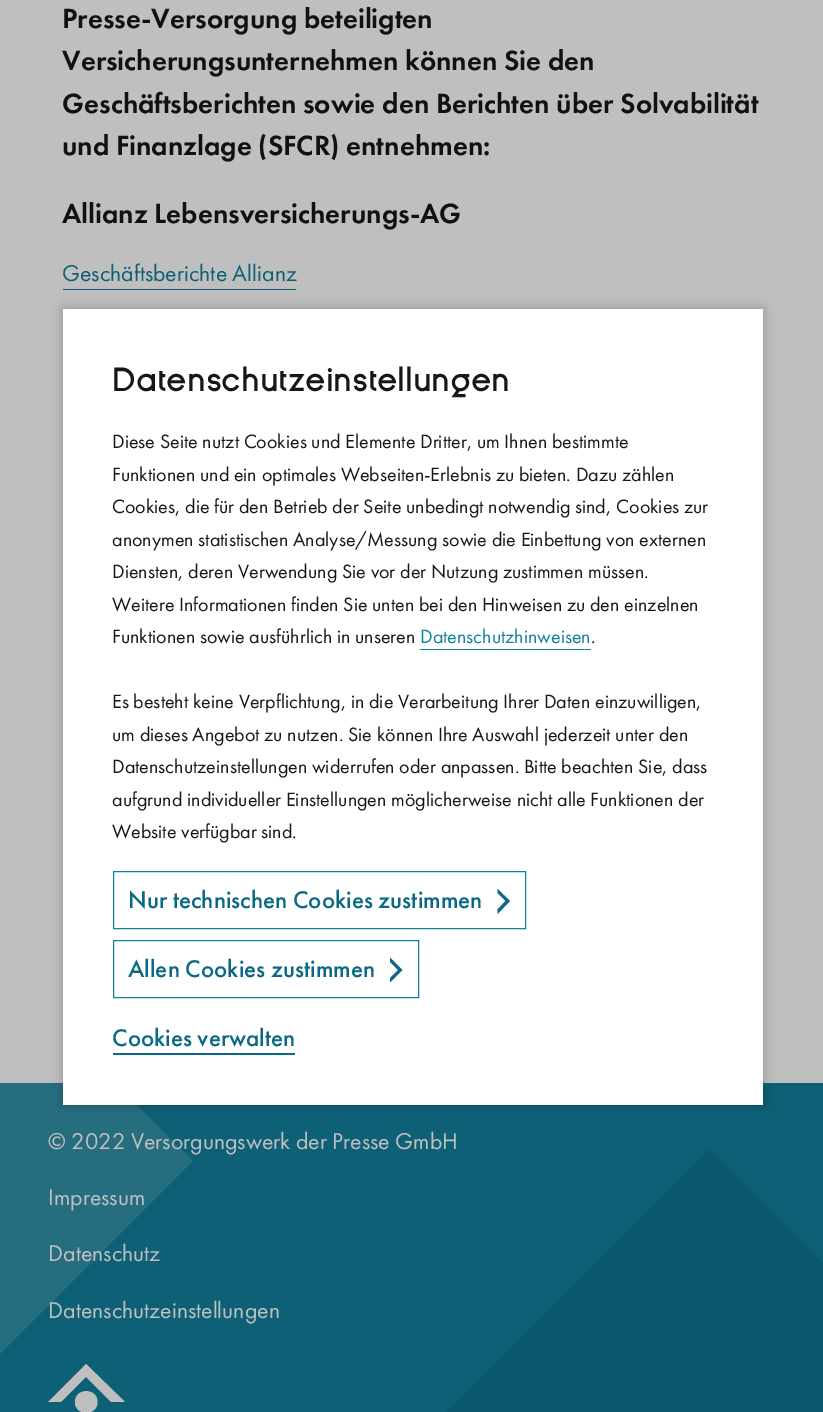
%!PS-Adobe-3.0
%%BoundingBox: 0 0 823 1412
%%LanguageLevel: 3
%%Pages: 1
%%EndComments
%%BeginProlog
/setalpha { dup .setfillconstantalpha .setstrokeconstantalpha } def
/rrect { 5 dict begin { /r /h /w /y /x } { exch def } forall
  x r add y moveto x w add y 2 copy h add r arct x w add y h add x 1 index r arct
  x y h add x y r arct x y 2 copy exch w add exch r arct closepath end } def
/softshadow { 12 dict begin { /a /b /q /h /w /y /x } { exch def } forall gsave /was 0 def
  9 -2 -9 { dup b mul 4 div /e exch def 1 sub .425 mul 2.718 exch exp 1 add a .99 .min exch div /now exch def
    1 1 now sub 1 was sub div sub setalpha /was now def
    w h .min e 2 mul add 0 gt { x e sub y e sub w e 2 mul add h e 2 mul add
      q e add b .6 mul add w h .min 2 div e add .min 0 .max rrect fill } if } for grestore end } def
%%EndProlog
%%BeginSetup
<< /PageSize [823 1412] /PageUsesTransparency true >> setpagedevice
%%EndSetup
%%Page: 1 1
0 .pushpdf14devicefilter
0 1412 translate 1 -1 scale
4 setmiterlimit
0.749 setgray
0 0 823 1412 rectfill
0.055 0.376 0.463 setrgbcolor
63 289 233 1 rectfill
0 1083 823 329 rectfill
0.149 0.427 0.502 setrgbcolor
newpath 0 1083 moveto 114 1083 lineto 193 1161 lineto 0 1354 lineto closepath fill
0 setgray
63 309 700 796 0 6 0.25 softshadow
1 setgray
63 309 700 796 rectfill
0.075 0.502 0.616 setrgbcolor
420 649 171 1 rectfill
113.5 871.5 412 57 rectstroke
0.043 0.412 0.522 setrgbcolor
newpath 497.5 893 moveto 497.5 889 lineto 510 901 lineto 497.5 914 lineto 497.5 909.5 lineto 505.5 901 lineto closepath fill
0.075 0.502 0.616 setrgbcolor
113.5 940.5 305 57 rectstroke
0.043 0.412 0.522 setrgbcolor
newpath 390 962 moveto 390 957.5 lineto 402.5 970 lineto 390 982.5 lineto 390 978 lineto 398 970 lineto closepath fill
113 1053 182 2 rectfill
0.749 setgray
newpath 75 1402 moveto 75 1387.5 97.5 1387.5 97.5 1402 curveto 97.5 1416.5 75 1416.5 75 1402 curveto fill
newpath 61 1402 moveto 48 1402 lineto 86 1364 lineto 125 1402 lineto 111 1402 lineto 86 1377 lineto closepath fill
0.043 0.345 0.427 setrgbcolor
newpath 369 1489 moveto 709 1149 lineto 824 1264 lineto 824 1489 lineto closepath fill
/FuturaPT-SemiBold [28.75 0 0 -28.75 0 0] selectfont
0.067 setgray
62 28 moveto (Presse-Versorgung beteiligten) show
62 70 moveto (Versicherungsunternehmen können Sie den) show
62 113 moveto (Geschäftsberichten sowie den Berichten über Solvabilität) show
62 155 moveto (und Finanzlage \(SFCR\) entnehmen:) show
62 223 moveto (Allianz Lebensversicherungs-AG) show
/FuturaPT-Regular [23.75 0 0 -23.75 0 0] selectfont
0.055 0.376 0.463 setrgbcolor
62 281 moveto (Geschäftsberichte Allianz) show
/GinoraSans-SemiBold [32.5 0 0 -32.5 0 0] selectfont
0.09 setgray
112 391 moveto (Datenschutzeinstellungen) show
/FuturaPT-Regular [20 0 0 -20 0 0] selectfont
112 448 moveto (Diese Seite nutzt Cookies und Elemente Dritter, um Ihnen bestimmte) show
112 481 moveto (Funktionen und ein optimales Webseiten-Erlebnis zu bieten. Dazu zählen) show
112 513 moveto (Cookies, die für den Betrieb der Seite unbedingt notwendig sind, Cookies zur) show
112 546 moveto (anonymen statistischen Analyse/Messung sowie die Einbettung von externen) show
112 578 moveto (Diensten, deren Verwendung Sie vor der Nutzung zustimmen müssen.) show
112 611 moveto (Weitere Informationen finden Sie unten bei den Hinweisen zu den einzelnen) show
112 643 moveto (Funktionen sowie ausführlich in unseren) show
0.075 0.502 0.616 setrgbcolor
420 643 moveto (Datenschutzhinweisen) show
0.09 setgray
591 643 moveto (.) show
112 708 moveto (Es besteht keine Verpflichtung, in die Verarbeitung Ihrer Daten einzuwilligen,) show
112 741 moveto (um dieses Angebot zu nutzen. Sie können Ihre Auswahl jederzeit unter den) show
112 773 moveto (Datenschutzeinstellungen widerrufen oder anpassen. Bitte beachten Sie, dass) show
112 806 moveto (aufgrund individueller Einstellungen möglicherweise nicht alle Funktionen der) show
112 838 moveto (Website verfügbar sind.) show
/FuturaPT-Medium [25 0 0 -25 0 0] selectfont
0.043 0.412 0.522 setrgbcolor
128 908 moveto (Nur technischen Cookies zustimmen) show
128 977 moveto (Allen Cookies zustimmen) show
112 1046 moveto (Cookies verwalten) show
/FuturaPT-Regular [23.75 0 0 -23.75 0 0] selectfont
0.749 setgray
48 1149 moveto (© 2022 Versorgungswerk der Presse GmbH) show
48 1205 moveto (Impressum) show
48 1261 moveto (Datenschutz) show
48 1318 moveto (Datenschutzeinstellungen) show
.poppdf14devicefilter showpage
%%EOF
